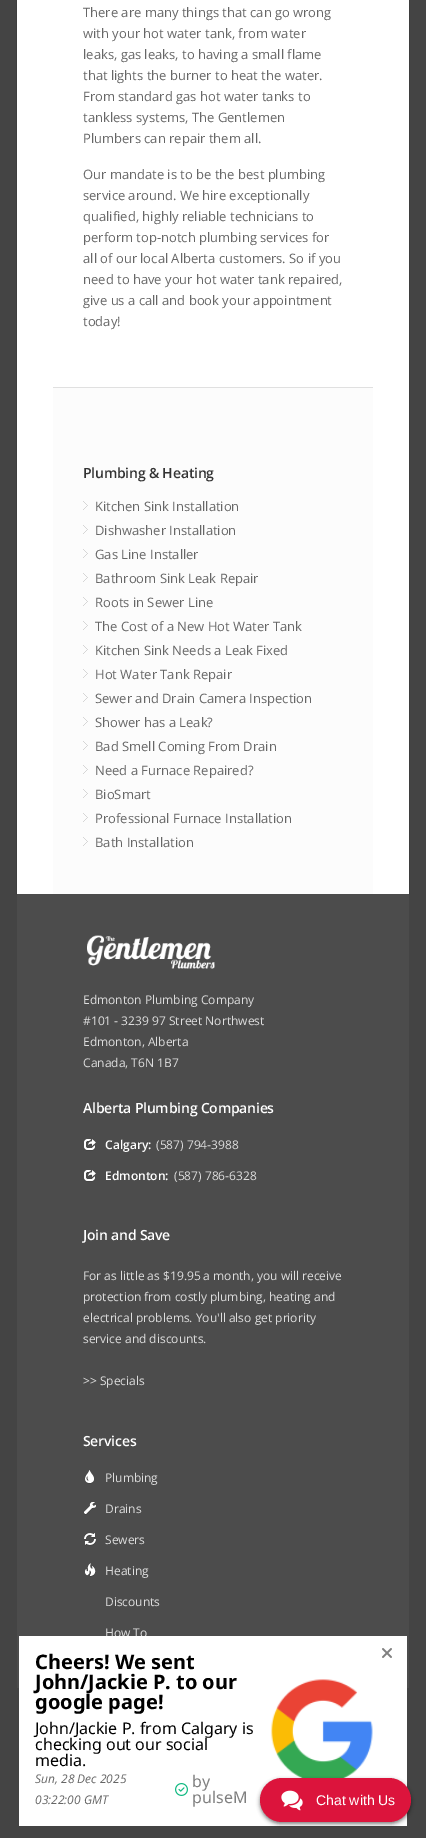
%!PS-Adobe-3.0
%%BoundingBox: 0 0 426 1838
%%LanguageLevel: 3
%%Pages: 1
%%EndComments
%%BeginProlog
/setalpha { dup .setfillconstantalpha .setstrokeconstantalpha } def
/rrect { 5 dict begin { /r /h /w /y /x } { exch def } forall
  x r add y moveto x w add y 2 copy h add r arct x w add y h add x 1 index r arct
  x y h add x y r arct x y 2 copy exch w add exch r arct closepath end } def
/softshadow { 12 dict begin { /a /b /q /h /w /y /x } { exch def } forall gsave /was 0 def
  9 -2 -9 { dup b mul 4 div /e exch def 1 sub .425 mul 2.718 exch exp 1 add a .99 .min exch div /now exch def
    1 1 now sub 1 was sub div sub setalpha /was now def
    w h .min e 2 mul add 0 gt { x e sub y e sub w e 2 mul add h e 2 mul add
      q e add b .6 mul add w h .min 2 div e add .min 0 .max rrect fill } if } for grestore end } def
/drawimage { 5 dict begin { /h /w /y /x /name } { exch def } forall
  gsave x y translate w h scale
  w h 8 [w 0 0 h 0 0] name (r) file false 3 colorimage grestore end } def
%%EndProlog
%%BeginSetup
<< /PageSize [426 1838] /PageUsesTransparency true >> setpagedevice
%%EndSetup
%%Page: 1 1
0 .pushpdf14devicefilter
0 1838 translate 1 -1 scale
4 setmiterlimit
0.267 setgray
0 0 426 1838 rectfill
0 setgray
17 -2 392 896 0 0.5 0.3 softshadow
1 setgray
17 0 392 894 rectfill
0.988 setgray
53 388 320 506 rectfill
0.878 setgray
53 387 320 1 rectfill
(images/1.raw) 83 501 5 9 drawimage
(images/1.raw) 83 525 5 9 drawimage
(images/1.raw) 83 549 5 9 drawimage
(images/1.raw) 83 573 5 9 drawimage
(images/1.raw) 83 597 5 9 drawimage
(images/1.raw) 83 621 5 9 drawimage
(images/1.raw) 83 645 5 9 drawimage
(images/1.raw) 83 669 5 9 drawimage
(images/1.raw) 83 693 5 9 drawimage
(images/1.raw) 83 717 5 9 drawimage
(images/1.raw) 83 741 5 9 drawimage
(images/1.raw) 83 765 5 9 drawimage
(images/1.raw) 83 789 5 9 drawimage
(images/1.raw) 83 813 5 9 drawimage
(images/1.raw) 83 837 5 9 drawimage
0.298 setgray
17 894 392 794 rectfill
(images/2.raw) 87 935 128 34 drawimage
(images/3.raw) 84 1139 12 12 drawimage
(images/3.raw) 84 1170 12 12 drawimage
(images/4.raw) 85 1470 9 14 drawimage
(images/5.raw) 84 1502 12 13 drawimage
(images/6.raw) 84 1533 12 13 drawimage
(images/7.raw) 85 1563 11 14 drawimage
/OpenSans-Regular [13 0 0 -13 0 0] selectfont
0.4 setgray
83 17 moveto (There are many things that can go wrong) show
83 38 moveto (with your hot water tank, from water) show
83 59 moveto (leaks, gas leaks, to having a small flame) show
83 80 moveto (that lights the burner to heat the water.) show
83 101 moveto (From standard gas hot water tanks to) show
83 122 moveto (tankless systems, The Gentlemen) show
83 143 moveto (Plumbers can repair them all.) show
83 179 moveto (Our mandate is to be the best plumbing) show
83 200 moveto (service around. We hire exceptionally) show
83 221 moveto (qualified, highly reliable technicians to) show
83 242 moveto (perform top-notch plumbing services for) show
83 263 moveto (all of our local Alberta customers. So if you) show
83 284 moveto (need to have your hot water tank repaired,) show
83 305 moveto (give us a call and book your appointment) show
83 326 moveto (today!) show
/OpenSans-SemiBold [14 0 0 -14 0 0] selectfont
0.2 setgray
83 478 moveto -0.2 0 (Plumbing & Heating) ashow
/OpenSans-Regular [13 0 0 -13 0 0] selectfont
0.4 setgray
95 511 moveto (Kitchen Sink Installation) show
95 535 moveto (Dishwasher Installation) show
95 559 moveto (Gas Line Installer) show
95 583 moveto (Bathroom Sink Leak Repair) show
95 607 moveto (Roots in Sewer Line) show
95 631 moveto (The Cost of a New Hot Water Tank) show
95 655 moveto (Kitchen Sink Needs a Leak Fixed) show
95 679 moveto (Hot Water Tank Repair) show
95 703 moveto (Sewer and Drain Camera Inspection) show
95 727 moveto (Shower has a Leak?) show
95 751 moveto (Bad Smell Coming From Drain) show
95 775 moveto (Need a Furnace Repaired?) show
95 799 moveto (BioSmart) show
95 823 moveto (Professional Furnace Installation) show
95 847 moveto (Bath Installation) show
/OpenSans-Regular [12 0 0 -12 0 0] selectfont
0.867 setgray
83 1004 moveto (Edmonton Plumbing Company) show
83 1025 moveto (#101 - 3239 97 Street Northwest) show
83 1046 moveto (Edmonton, Alberta) show
83 1067 moveto (Canada, T6N 1B7) show
/OpenSans-SemiBold [14 0 0 -14 0 0] selectfont
1 setgray
83 1113 moveto -0.2 0 (Alberta Plumbing Companies) ashow
/OpenSans-SemiBold [12 0 0 -12 0 0] selectfont
105 1149 moveto (Calgary:) show
/OpenSans-Regular [12 0 0 -12 0 0] selectfont
0.867 setgray
156 1149 moveto (\(587\) 794-3988) show
/OpenSans-SemiBold [12 0 0 -12 0 0] selectfont
1 setgray
105 1180 moveto (Edmonton:) show
/OpenSans-Regular [12 0 0 -12 0 0] selectfont
0.867 setgray
174 1180 moveto (\(587\) 786-6328) show
/OpenSans-SemiBold [14 0 0 -14 0 0] selectfont
1 setgray
83 1240 moveto -0.2 0 (Join and Save) ashow
/OpenSans-Regular [12 0 0 -12 0 0] selectfont
0.867 setgray
83 1280 moveto (For as little as $19.95 a month, you will receive) show
83 1301 moveto (protection from costly plumbing, heating and) show
83 1322 moveto (electrical problems. You'll also get priority) show
83 1343 moveto (service and discounts.) show
83 1385 moveto (>> Specials) show
/OpenSans-SemiBold [14 0 0 -14 0 0] selectfont
1 setgray
83 1446 moveto -0.2 0 (Services) ashow
/OpenSans-Regular [12 0 0 -12 0 0] selectfont
0.867 setgray
105 1482 moveto (Plumbing) show
105 1513 moveto (Drains) show
105 1544 moveto (Sewers) show
105 1575 moveto (Heating) show
105 1606 moveto (Discounts) show
105 1637 moveto (How To) show
1 setgray
19 1636 388 190 rectfill
/NotoSans-Bold [20 0 0 -20 0 0] selectfont
0 setgray
35 1669 moveto (Cheers! We sent) show
35 1689 moveto (John/Jackie P. to our) show
35 1709 moveto (google page!) show
/NotoSans-Regular [16 0 0 -16 0 0] selectfont
35 1734 moveto (John/Jackie P. from Calgary is) show
35 1750 moveto (checking out our social) show
35 1766 moveto (media.) show
/OpenSans-Italic [12 0 0 -12 0 0] selectfont
0.4 setgray
35 1783 moveto (Sun, 28 Dec 2025) show
35 1804 moveto (03:22:00 GMT) show
(images/8.raw) 175 1783 13 13 drawimage
/NotoSans-Regular [16 0 0 -16 0 0] selectfont
0.502 setgray
192 1787 moveto (by) show
192 1803 moveto (pulseM) show
(images/9.raw) 270 1679 103 99 drawimage
(images/10.raw) 382 1648 10 10 drawimage
0 setgray
260 1780 151 44 22 2 0.5 softshadow
0.863 0.078 0.235 setrgbcolor
260 1778 151 44 22 rrect fill
(images/11.raw) 281 1790 22 21 drawimage
/LiberationSans-Regular [14 0 0 -14 0 0] selectfont
1 setgray
316 1805 moveto (Chat with Us) show
.poppdf14devicefilter showpage
%%EOF
